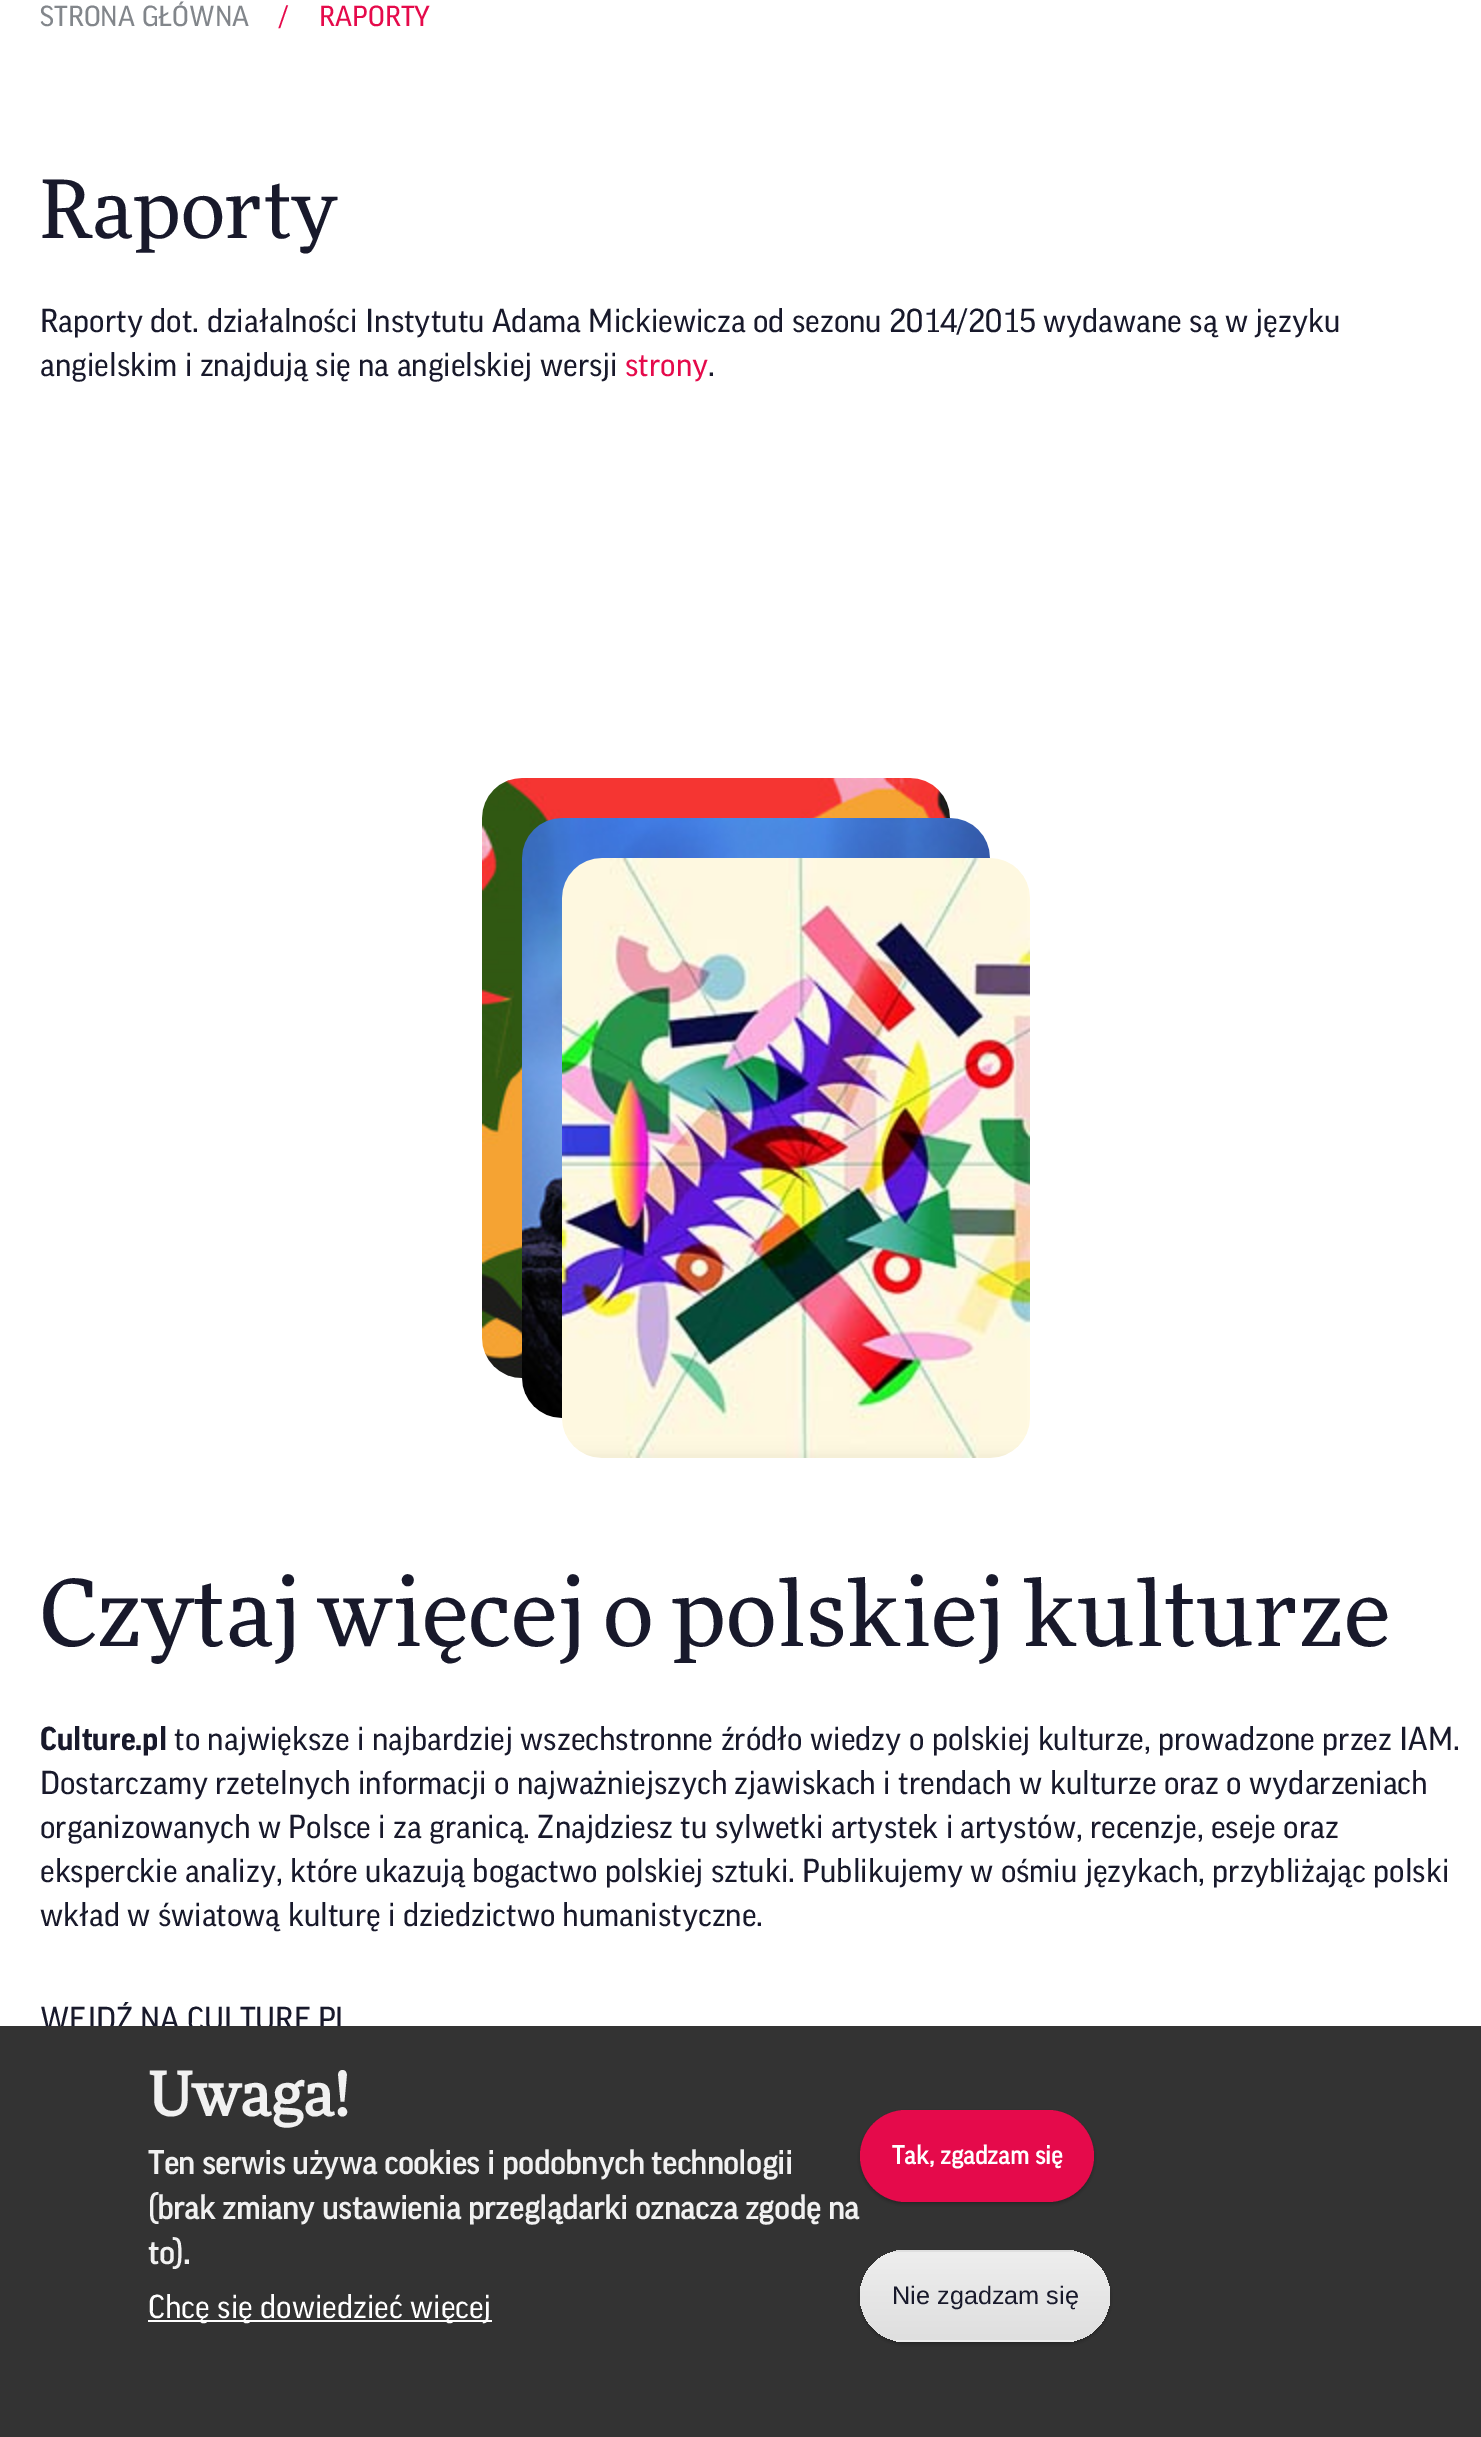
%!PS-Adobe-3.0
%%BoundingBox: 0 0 1481 2437
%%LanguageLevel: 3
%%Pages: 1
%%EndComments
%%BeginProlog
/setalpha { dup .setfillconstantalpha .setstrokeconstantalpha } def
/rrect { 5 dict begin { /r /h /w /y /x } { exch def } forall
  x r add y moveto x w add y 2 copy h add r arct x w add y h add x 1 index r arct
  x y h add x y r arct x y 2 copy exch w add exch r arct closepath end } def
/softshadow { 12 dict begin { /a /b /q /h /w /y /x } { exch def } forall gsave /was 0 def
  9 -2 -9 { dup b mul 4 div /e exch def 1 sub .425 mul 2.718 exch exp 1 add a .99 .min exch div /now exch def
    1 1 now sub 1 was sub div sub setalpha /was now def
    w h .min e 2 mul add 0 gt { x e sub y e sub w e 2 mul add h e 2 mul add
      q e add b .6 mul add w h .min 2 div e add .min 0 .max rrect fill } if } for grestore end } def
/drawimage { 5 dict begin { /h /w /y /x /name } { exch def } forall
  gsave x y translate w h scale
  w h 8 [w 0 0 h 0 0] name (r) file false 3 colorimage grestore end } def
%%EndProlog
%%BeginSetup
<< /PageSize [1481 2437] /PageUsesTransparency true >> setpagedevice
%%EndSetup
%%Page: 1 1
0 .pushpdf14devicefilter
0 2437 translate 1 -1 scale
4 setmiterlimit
1 setgray
0 0 1481 2437 rectfill
(images/1.raw) 482 778 468 600 drawimage
(images/2.raw) 522 818 468 600 drawimage
(images/3.raw) 562 858 468 600 drawimage
/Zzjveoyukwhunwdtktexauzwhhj-Regular [28 0 0 -28 0 0] selectfont
0.51 0.525 0.545 setrgbcolor
40 26 moveto (STRONA GŁÓWNA) show
0.898 0.039 0.294 setrgbcolor
279 26 moveto (/) show
319 26 moveto (RAPORTY) show
/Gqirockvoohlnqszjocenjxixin-Regular [80 0 0 -80 0 0] selectfont
0.094 0.098 0.169 setrgbcolor
40 238 moveto (Raporty) show
/Zzjveoyukwhunwdtktexauzwhhj-Regular [32 0 0 -32 0 0] selectfont
40 332 moveto (Raporty dot. działalności Instytutu Adama Mickiewicza od sezonu 2014/2015 wydawane są w języku) show
40 376 moveto (angielskim i znajdują się na angielskiej wersji) show
0.898 0.039 0.294 setrgbcolor
625 376 moveto (strony) show
0.094 0.098 0.169 setrgbcolor
708 376 moveto (.) show
/Gqirockvoohlnqszjocenjxixin-Regular [92 0 0 -92 0 0] selectfont
40 1646 moveto (Czytaj więcej o polskiej kulturze) show
/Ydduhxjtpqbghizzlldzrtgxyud-Bold [32 0 0 -32 0 0] selectfont
40 1750 moveto (Culture.pl) show
/Zzjveoyukwhunwdtktexauzwhhj-Regular [32 0 0 -32 0 0] selectfont
174 1750 moveto (to największe i najbardziej wszechstronne źródło wiedzy o polskiej kulturze, prowadzone przez IAM.) show
40 1794 moveto (Dostarczamy rzetelnych informacji o najważniejszych zjawiskach i trendach w kulturze oraz o wydarzeniach) show
40 1838 moveto (organizowanych w Polsce i za granicą. Znajdziesz tu sylwetki artystek i artystów, recenzje, eseje oraz) show
40 1882 moveto (eksperckie analizy, które ukazują bogactwo polskiej sztuki. Publikujemy w ośmiu językach, przybliżając polski) show
40 1926 moveto (wkład w światową kulturę i dziedzictwo humanistyczne.) show
40 2030 moveto (WEJDŹ NA CULTURE.PL) show
0.2 setgray
0 2026 1481 411 rectfill
/Gqirockvoohlnqszjocenjxixin-Bold [60 0 0 -60 0 0] selectfont
0.945 setgray
148 2116 moveto (Uwaga!) show
/Zzjveoyukwhunwdtktexauzwhhj-Bold [32 0 0 -32 0 0] selectfont
148 2174 moveto (Ten serwis używa cookies i podobnych technologii) show
148 2219 moveto (\(brak zmiany ustawienia przeglądarki oznacza zgodę na) show
148 2264 moveto (to\).) show
1 setgray
148 2320 344 2 rectfill
/Zzjveoyukwhunwdtktexauzwhhj-Regular [32 0 0 -32 0 0] selectfont
148 2318 moveto (Chcę się dowiedzieć więcej) show
0 setgray
860 2112 234 92 46 2 0.25 softshadow
0.898 0.039 0.294 setrgbcolor
860 2110 234 92 46 rrect fill
/Zzjveoyukwhunwdtktexauzwhhj-Bold [25.25 0 0 -25.25 0 0] selectfont
1 setgray
892 2164 moveto (Tak, zgadzam się) show
0 setgray
860 2252 250 92 46 2 0.25 softshadow
gsave
860 2250 250 92 46 rrect clip newpath
gsave newpath 893 2250 moveto 1078 2250 lineto 1078 2252 lineto 893 2252 lineto closepath clip newpath
<< /ShadingType 2 /ColorSpace /DeviceRGB /Coords [985 2164 985 2252] /Extend [true true] /Function << /FunctionType 3 /Domain [0 1] /Functions [<< /FunctionType 2 /Domain [0 1] /C0 [0.929 0.929 0.929] /C1 [0.929 0.929 0.929] /N 1 >> << /FunctionType 2 /Domain [0 1] /C0 [0.929 0.929 0.929] /C1 [0.875 0.875 0.875] /N 1 >>] /Bounds [0.05] /Encode [0 1 0 1] >> >> shfill grestore
gsave newpath 860 2252 moveto 1110 2252 lineto 1110 2340 lineto 860 2340 lineto closepath clip newpath
<< /ShadingType 2 /ColorSpace /DeviceRGB /Coords [985 2252 985 2340] /Extend [true true] /Function << /FunctionType 3 /Domain [0 1] /Functions [<< /FunctionType 2 /Domain [0 1] /C0 [0.929 0.929 0.929] /C1 [0.929 0.929 0.929] /N 1 >> << /FunctionType 2 /Domain [0 1] /C0 [0.929 0.929 0.929] /C1 [0.875 0.875 0.875] /N 1 >>] /Bounds [0.05] /Encode [0 1 0 1] >> >> shfill grestore
gsave newpath 893 2340 moveto 1078 2340 lineto 1078 2342 lineto 893 2342 lineto closepath clip newpath
<< /ShadingType 2 /ColorSpace /DeviceRGB /Coords [985 2340 985 2428] /Extend [true true] /Function << /FunctionType 3 /Domain [0 1] /Functions [<< /FunctionType 2 /Domain [0 1] /C0 [0.929 0.929 0.929] /C1 [0.929 0.929 0.929] /N 1 >> << /FunctionType 2 /Domain [0 1] /C0 [0.929 0.929 0.929] /C1 [0.875 0.875 0.875] /N 1 >>] /Bounds [0.05] /Encode [0 1 0 1] >> >> shfill grestore
grestore
/LiberationSans-Regular [25.25 0 0 -25.25 0 0] selectfont
0.094 0.098 0.169 setrgbcolor
892 2304 moveto (Nie zgadzam się) show
.poppdf14devicefilter showpage
%%EOF
